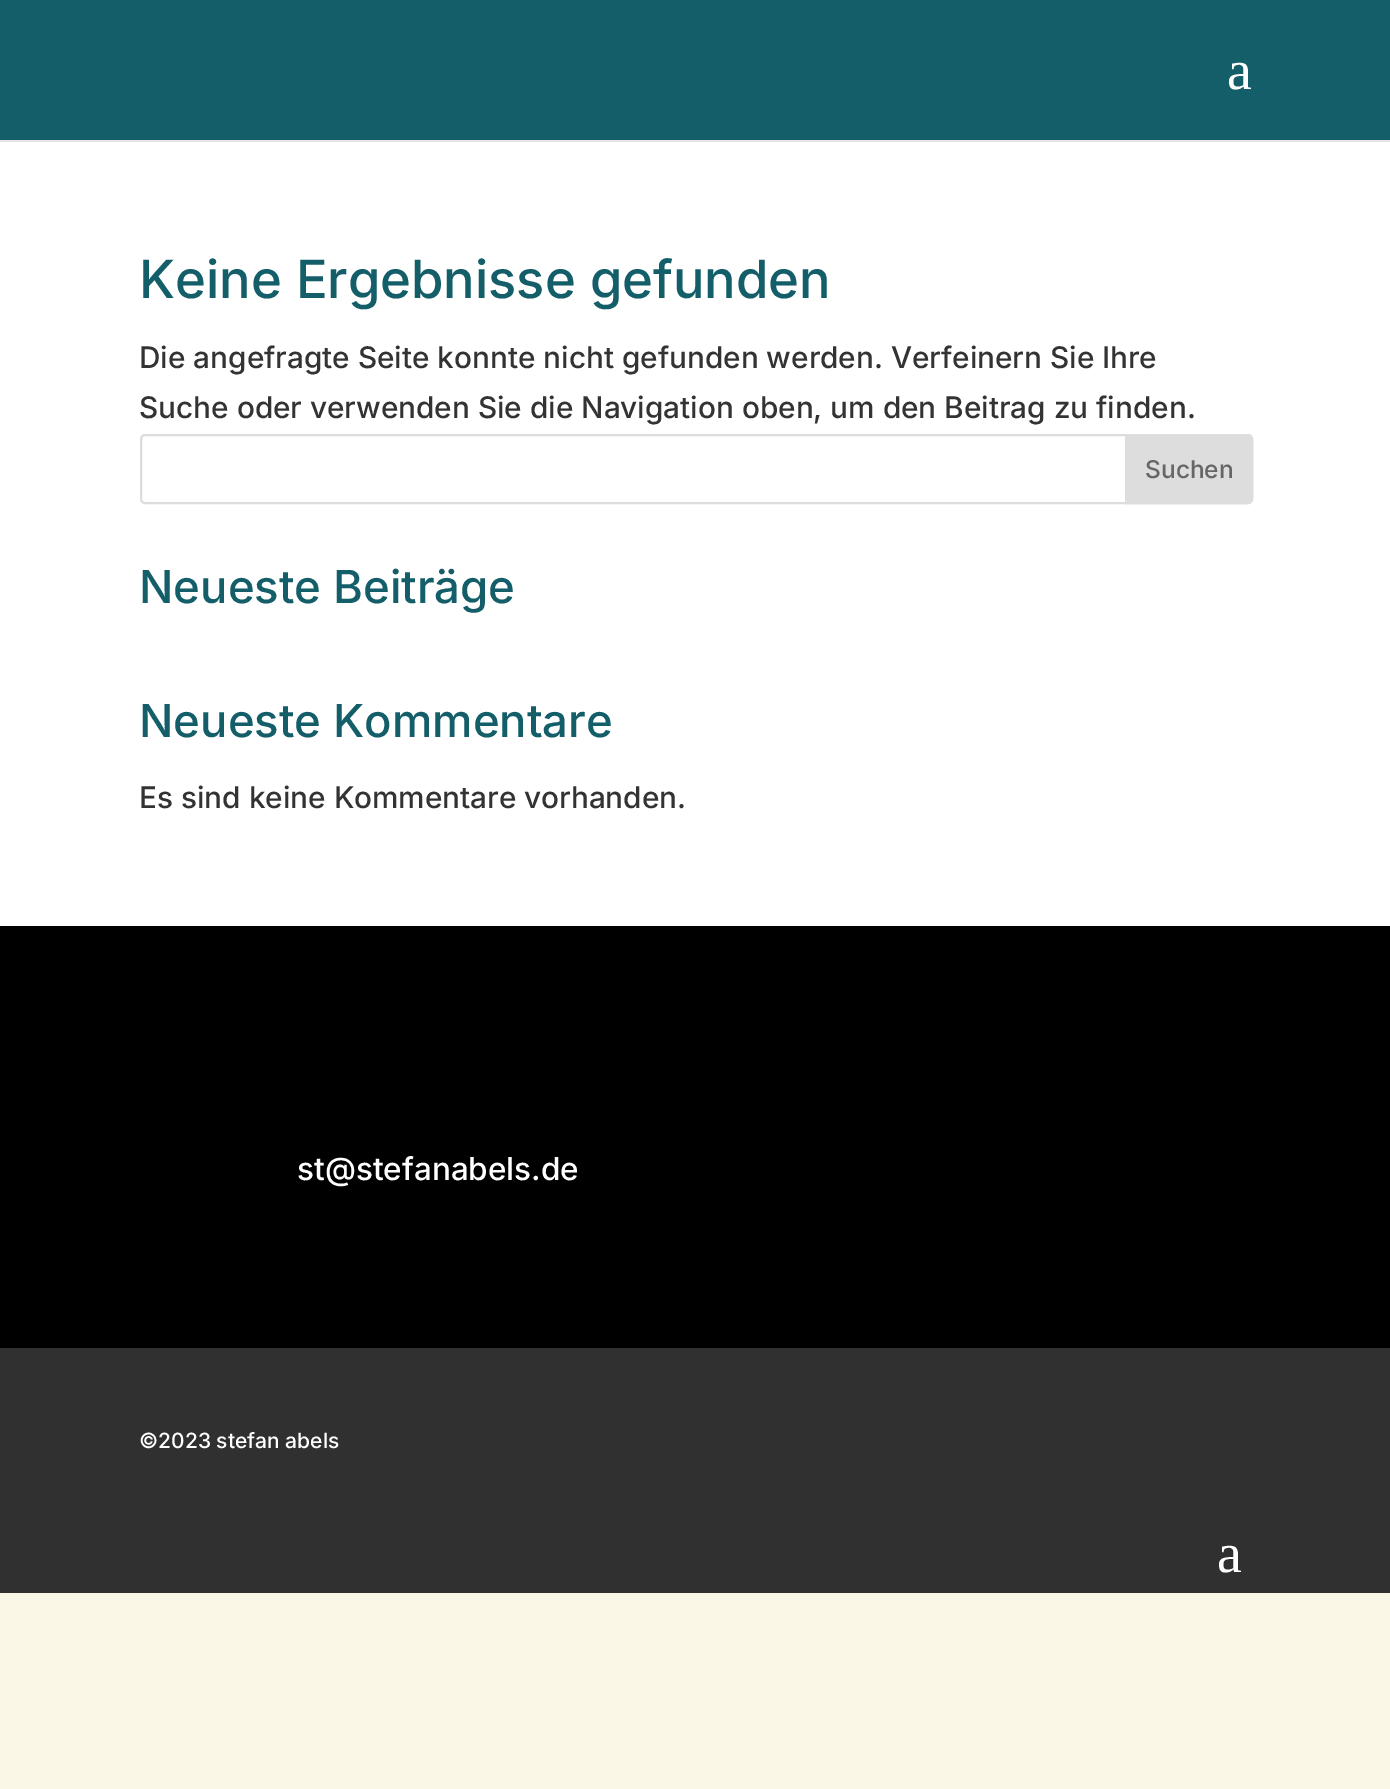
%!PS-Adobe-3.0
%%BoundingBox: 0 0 1390 1789
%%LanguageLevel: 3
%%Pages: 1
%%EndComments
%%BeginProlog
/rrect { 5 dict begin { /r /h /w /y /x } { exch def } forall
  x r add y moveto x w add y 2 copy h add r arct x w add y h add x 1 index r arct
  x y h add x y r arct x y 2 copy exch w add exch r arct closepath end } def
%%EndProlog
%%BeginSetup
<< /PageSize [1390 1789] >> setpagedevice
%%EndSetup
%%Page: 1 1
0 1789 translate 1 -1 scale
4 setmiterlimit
0.984 0.969 0.906 setrgbcolor
0 0 1390 1789 rectfill
0.902 setgray
0 140 1390 2 rectfill
0.075 0.369 0.412 setrgbcolor
0 0 1390 140 rectfill
1 setgray
0 142 1390 784 rectfill
0.867 setgray
2 setlinewidth
141 435 1111 68 4 rrect stroke
newpath 1126 435 moveto 1248 435 lineto 1250 435 1252 437 1252 439 curveto 1252 499 lineto 1252 501 1250 503 1248 503 curveto 1126 503 lineto closepath gsave fill grestore
stroke
0 setgray
0 926 1390 422 rectfill
0.188 setgray
0 1348 1390 245 rectfill
/LiberationSerif-Regular [56 0 0 -56 0 0] selectfont
1 setgray
1227 89 moveto (a) show
/Inter-Medium [52.5 0 0 -52.5 0 0] selectfont
0.075 0.369 0.412 setrgbcolor
139 298 moveto (Keine Ergebnisse gefunden) show
/Inter-Medium [29.75 0 0 -29.75 0 0] selectfont
0.2 setgray
139 368 moveto (Die angefragte Seite konnte nicht gefunden werden. Verfeinern Sie Ihre) show
139 418 moveto (Suche oder verwenden Sie die Navigation oben, um den Beitrag zu finden.) show
/Inter-Medium [24.5 0 0 -24.5 0 0] selectfont
0.4 setgray
1145 478 moveto (Suchen) show
/Inter-Medium [45.5 0 0 -45.5 0 0] selectfont
0.075 0.369 0.412 setrgbcolor
139 603 moveto (Neueste Beiträge) show
139 737 moveto (Neueste Kommentare) show
/Inter-Medium [29.75 0 0 -29.75 0 0] selectfont
0.2 setgray
139 808 moveto (Es sind keine Kommentare vorhanden.) show
/Inter-Medium [31.5 0 0 -31.5 0 0] selectfont
1 setgray
297 1180 moveto (st@stefanabels.de) show
/Inter-Medium [21 0 0 -21 0 0] selectfont
139 1448 moveto (©2023 stefan abels) show
/LiberationSerif-Regular [56 0 0 -56 0 0] selectfont
1217 1572 moveto (a) show
showpage
%%EOF
